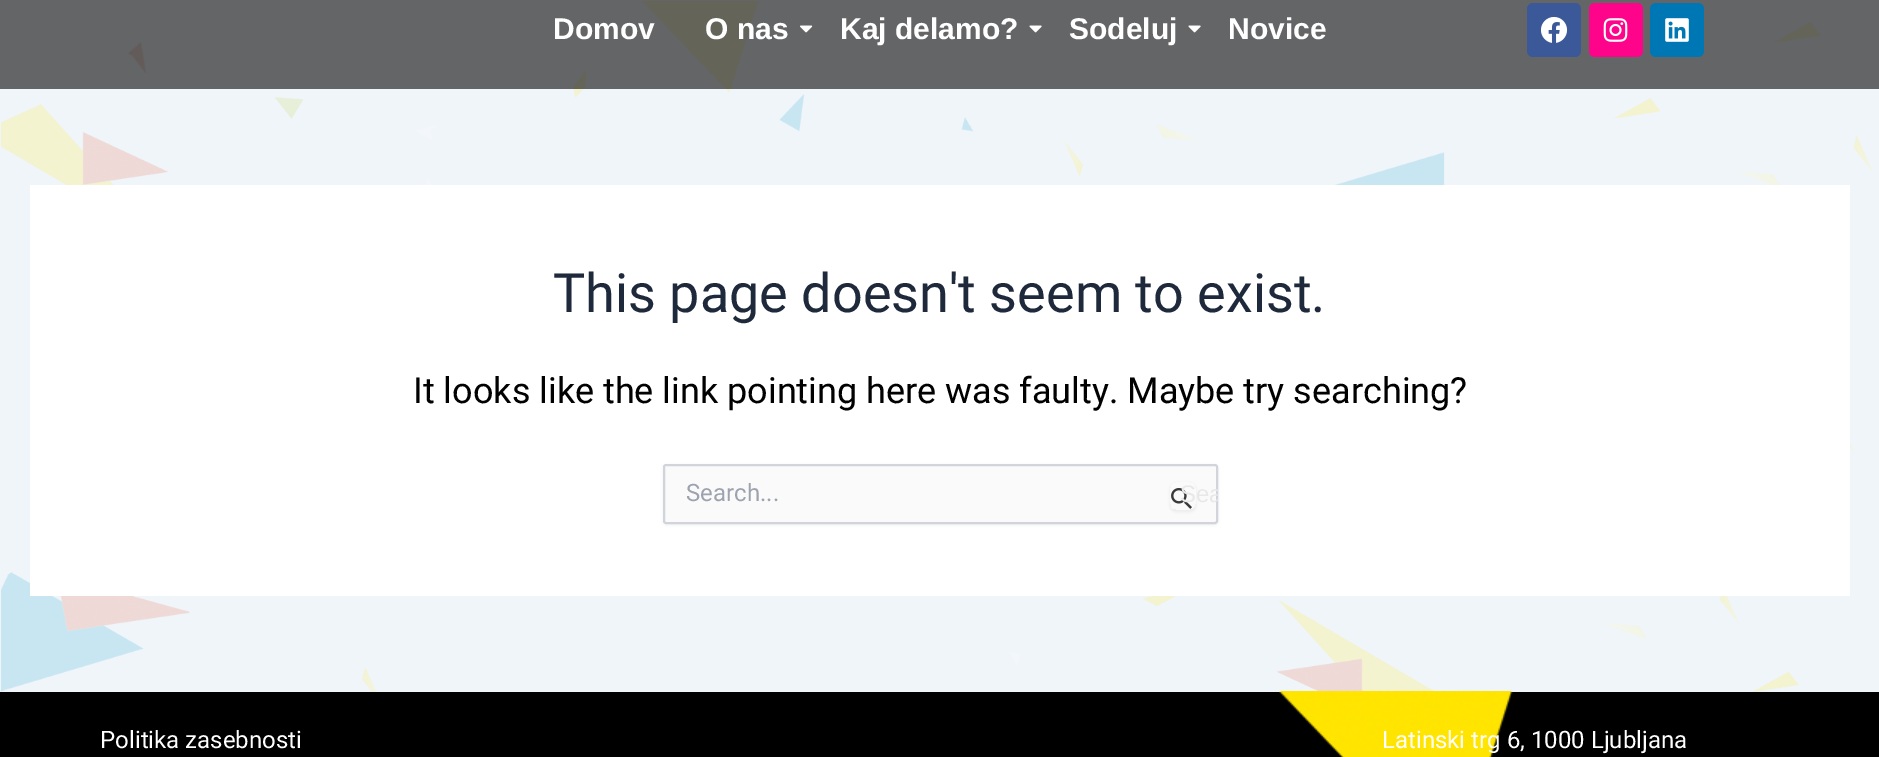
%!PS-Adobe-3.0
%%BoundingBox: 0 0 1879 757
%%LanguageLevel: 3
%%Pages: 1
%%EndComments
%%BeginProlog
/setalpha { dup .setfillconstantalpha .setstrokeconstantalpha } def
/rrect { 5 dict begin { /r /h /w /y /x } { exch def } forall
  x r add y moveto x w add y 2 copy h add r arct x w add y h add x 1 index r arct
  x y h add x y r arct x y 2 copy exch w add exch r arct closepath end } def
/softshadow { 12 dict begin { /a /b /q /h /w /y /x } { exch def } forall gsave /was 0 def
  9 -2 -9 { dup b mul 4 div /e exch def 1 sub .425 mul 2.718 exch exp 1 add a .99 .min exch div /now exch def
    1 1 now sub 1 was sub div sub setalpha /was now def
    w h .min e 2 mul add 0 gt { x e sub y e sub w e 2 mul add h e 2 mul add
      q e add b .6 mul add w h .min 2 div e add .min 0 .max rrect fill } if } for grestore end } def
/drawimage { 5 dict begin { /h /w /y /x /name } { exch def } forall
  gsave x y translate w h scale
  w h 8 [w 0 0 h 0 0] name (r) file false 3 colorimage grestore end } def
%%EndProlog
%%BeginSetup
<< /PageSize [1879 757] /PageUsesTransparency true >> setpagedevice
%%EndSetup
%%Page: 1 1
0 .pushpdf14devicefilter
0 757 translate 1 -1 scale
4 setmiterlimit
0.941 0.961 0.98 setrgbcolor
0 0 1879 757 rectfill
(images/6.raw) 1 1 1873 691 drawimage
0.65 setalpha
0.094 setgray
0 0 1879 89 rectfill
1 setalpha
(images/1.raw) 800 25 13 8 drawimage
(images/2.raw) 1029 25 13 8 drawimage
(images/2.raw) 1188 25 13 8 drawimage
0.231 0.349 0.596 setrgbcolor
1527 3 54 54 6 rrect fill
(images/3.raw) 1541 17 27 26 drawimage
0.992 0.016 0.541 setrgbcolor
1589 3 54 54 6 rrect fill
(images/4.raw) 1603 18 25 24 drawimage
0 0.467 0.71 setrgbcolor
1650 3 54 54 6 rrect fill
(images/5.raw) 1665 18 24 24 drawimage
1 setgray
30 185 1820 411 rectfill
0 setgray
663 465 555 60 3 1.5 0.05 softshadow
0.98 setgray
664 465 553 58 2 rrect gsave fill grestore
0.82 0.835 0.859 setrgbcolor
2 setlinewidth
stroke
gsave
newpath 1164 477 moveto 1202 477 lineto 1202 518 lineto 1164 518 lineto closepath 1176 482 moveto 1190 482 lineto 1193.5 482 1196 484.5 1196 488 curveto 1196 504 lineto 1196 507.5 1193.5 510 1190 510 curveto 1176 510 lineto 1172.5 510 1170 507.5 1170 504 curveto 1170 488 lineto 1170 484.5 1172.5 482 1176 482 curveto closepath eoclip newpath
0 setgray
1170 483 26 29 6 1.5 0.05 softshadow
grestore
(images/7.raw) 1171 488 21 21 drawimage
0 setgray
0 692 1879 65 rectfill
(images/8.raw) 1279 691 234 66 drawimage
/LiberationSans-Bold [30 0 0 -30 0 0] selectfont
1 setgray
553 39 moveto (Domov) show
705 39 moveto (O nas) show
840 39 moveto (Kaj delamo?) show
1069 39 moveto (Sodeluj) show
1228 39 moveto (Novice) show
/Roboto-Regular [54 0 0 -54 0 0] selectfont
0.118 0.161 0.231 setrgbcolor
553 312 moveto (This page doesn't seem to exist.) show
/Roboto-Regular [36 0 0 -36 0 0] selectfont
0.004 setgray
413 403 moveto (It looks like the link pointing here was faulty. Maybe try searching?) show
/Roboto-Regular [24 0 0 -24 0 0] selectfont
0.612 0.639 0.686 setrgbcolor
686 501 moveto (Search...) show
gsave
1151 464 67 63 3 rrect clip newpath
/LiberationSans-Regular [24 0 0 -24 0 0] selectfont
0.91 setgray
1180 502 moveto (Sea) show
grestore
1 setgray
100 748 moveto (Politika zasebnosti) show
1382 748 moveto (Latinski trg 6, 1000 Ljubljana) show
.poppdf14devicefilter showpage
%%EOF
